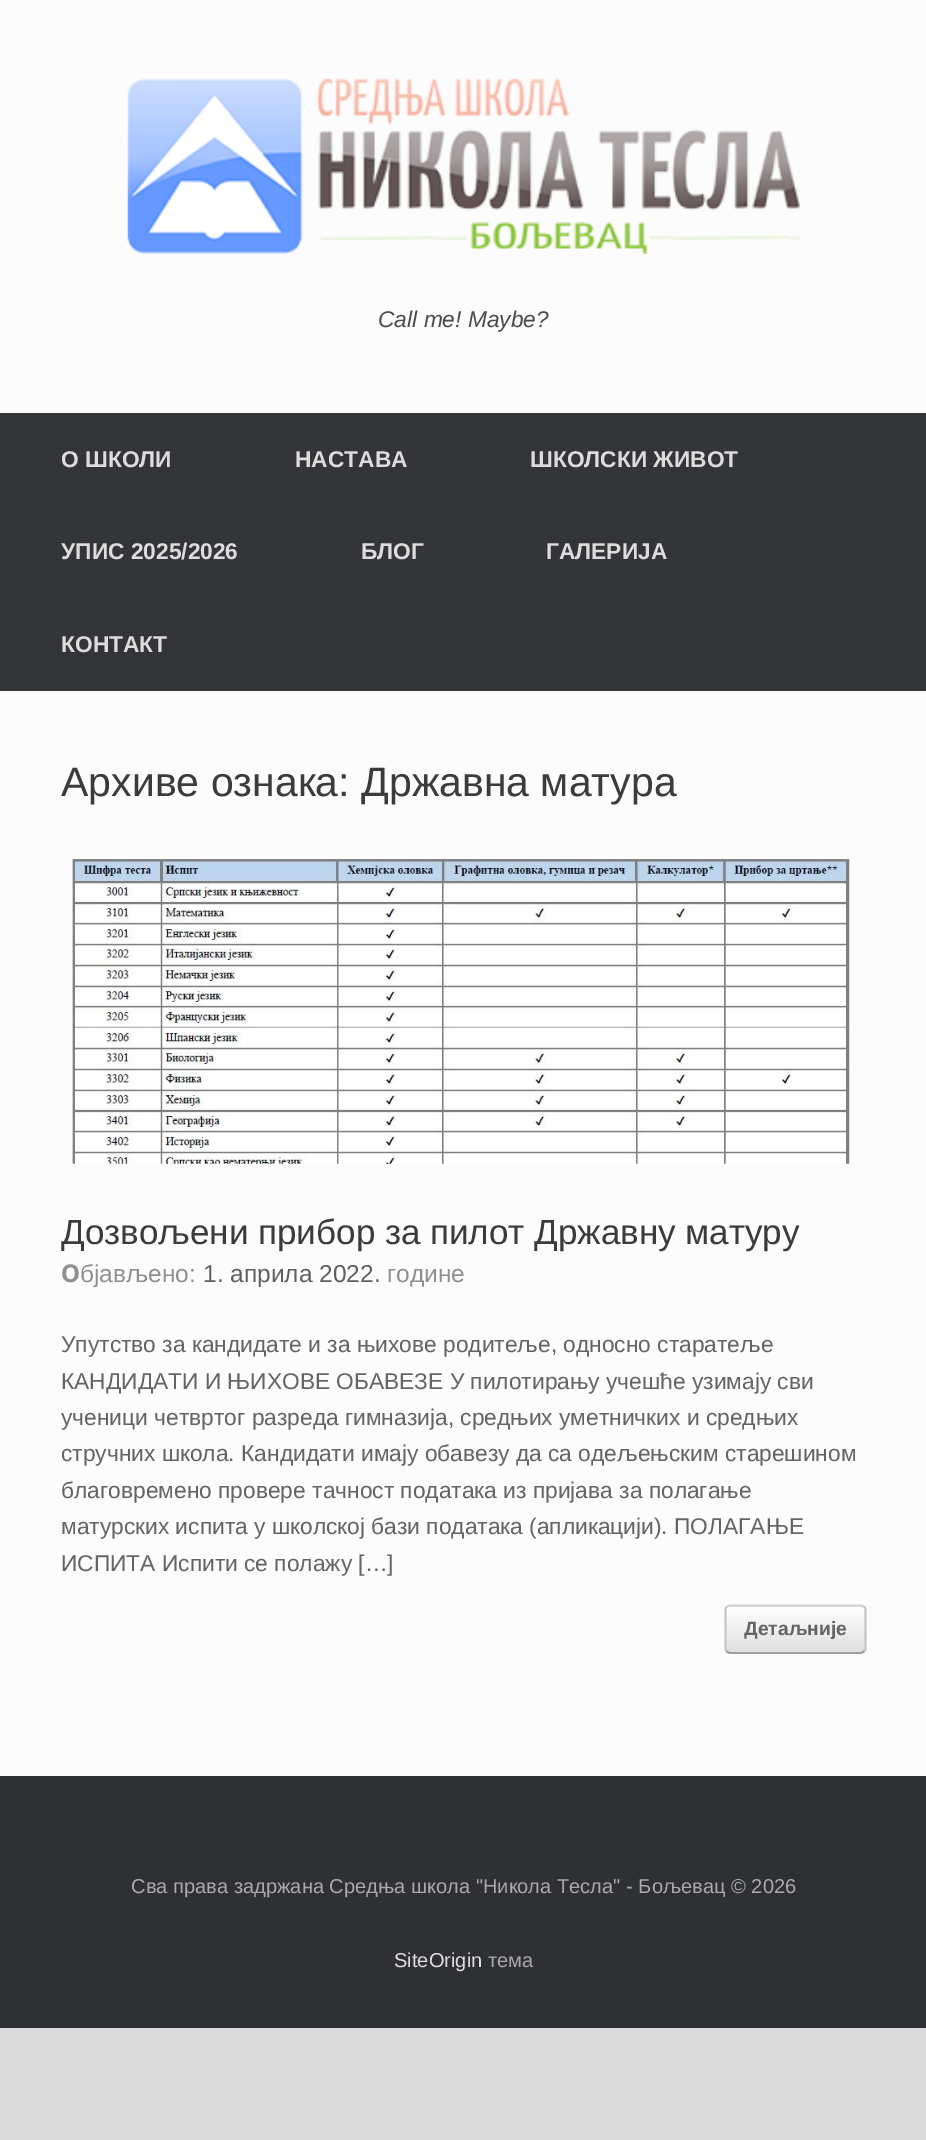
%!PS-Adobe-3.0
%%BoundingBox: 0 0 926 2140
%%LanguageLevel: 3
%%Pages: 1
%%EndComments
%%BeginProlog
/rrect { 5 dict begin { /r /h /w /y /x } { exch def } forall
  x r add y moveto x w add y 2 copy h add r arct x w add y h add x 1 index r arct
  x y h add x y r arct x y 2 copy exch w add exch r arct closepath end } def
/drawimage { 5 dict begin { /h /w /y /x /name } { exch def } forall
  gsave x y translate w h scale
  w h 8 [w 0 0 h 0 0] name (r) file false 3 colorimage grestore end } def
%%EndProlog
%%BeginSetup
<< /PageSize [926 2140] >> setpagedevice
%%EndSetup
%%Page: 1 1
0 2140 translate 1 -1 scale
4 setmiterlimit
0.855 setgray
0 0 926 2140 rectfill
0.988 setgray
0 0 926 413 rectfill
(images/1.raw) 127 78 673 176 drawimage
0.204 0.208 0.22 setrgbcolor
0 413 926 278 rectfill
0.988 setgray
0 691 926 1085 rectfill
(images/2.raw) 72 857 778 307 drawimage
gsave
725 1605 141 49 5 rrect clip newpath
gsave newpath 725 1605 moveto 866 1605 lineto 866 1607 lineto 725 1607 lineto closepath clip newpath
<< /ShadingType 2 /ColorSpace /DeviceRGB /Coords [726 1607 726 1561] /Extend [true true] /Function << /FunctionType 2 /Domain [0 1] /C0 [0.875 0.875 0.875] /C1 [1 1 1] /N 1 >> >> shfill grestore
gsave newpath 725 1607 moveto 866 1607 lineto 866 1652 lineto 725 1652 lineto closepath clip newpath
<< /ShadingType 2 /ColorSpace /DeviceRGB /Coords [726 1652 726 1607] /Extend [true true] /Function << /FunctionType 2 /Domain [0 1] /C0 [0.875 0.875 0.875] /C1 [1 1 1] /N 1 >> >> shfill grestore
gsave newpath 725 1652 moveto 866 1652 lineto 866 1654 lineto 725 1654 lineto closepath clip newpath
<< /ShadingType 2 /ColorSpace /DeviceRGB /Coords [726 1698 726 1652] /Extend [true true] /Function << /FunctionType 2 /Domain [0 1] /C0 [0.875 0.875 0.875] /C1 [1 1 1] /N 1 >> >> shfill grestore
grestore
0.824 setgray
1.8 setlinewidth
newpath 726.5 1607 moveto 729.5 1605.5 lineto 839 1605.5 lineto 861 1605.5 lineto 864 1607 lineto stroke
0.765 setgray
newpath 864 1607 moveto 865 1607.5 865.5 1609 865.5 1610 curveto 865.5 1648.5 lineto 865.5 1649.5 865 1651 864 1651.5 curveto stroke
0.624 setgray
newpath 864 1651.5 moveto 861 1653 lineto 729.5 1653 lineto 726.5 1651.5 lineto stroke
0.765 setgray
newpath 726.5 1651.5 moveto 726 1651 725.5 1649.5 725.5 1648.5 curveto 725.5 1610 lineto 725.5 1609 726 1607.5 726.5 1607 curveto stroke
0.184 0.188 0.2 setrgbcolor
0 1776 926 252 rectfill
/LiberationSans-Italic [22.75 0 0 -22.75 0 0] selectfont
0.294 setgray
378 327 moveto (Call me! Maybe?) show
/LiberationSans-Bold [22.75 0 0 -22.75 0 0] selectfont
0.867 setgray
61 467 moveto (О ШКОЛИ) show
295 467 moveto (НАСТАВА) show
530 467 moveto (ШКОЛСКИ ЖИВОТ) show
61 559 moveto (УПИС 2025/2026) show
361 559 moveto (БЛОГ) show
546 559 moveto (ГАЛЕРИЈА) show
61 652 moveto (КОНТАКТ) show
/LiberationSans-Regular [41 0 0 -41 0 0] selectfont
0.231 setgray
61 796 moveto (Архиве ознака: Државна матура) show
/LiberationSans-Regular [35 0 0 -35 0 0] selectfont
61 1244 moveto (Дозвољени прибор за пилот Државну матуру) show
/NotoSans-Bold [24.5 0 0 -24.5 0 0] selectfont
0.561 setgray
61 1282 moveto (О) show
/LiberationSans-Regular [24.5 0 0 -24.5 0 0] selectfont
80 1282 moveto (бјављено:) show
0.369 setgray
203 1282 moveto (1. априла 2022.) show
0.561 setgray
387 1282 moveto (године) show
/LiberationSans-Regular [22.75 0 0 -22.75 0 0] selectfont
0.392 setgray
61 1352 moveto (Упутство за кандидате и за њихове родитеље, односно старатеље) show
61 1389 moveto (КАНДИДАТИ И ЊИХОВЕ ОБАВЕЗЕ У пилотирању учешће узимају сви) show
61 1425 moveto (ученици четвртог разреда гимназија, средњих уметничких и средњих) show
61 1461 moveto (стручних школа. Кандидати имају обавезу да са одељењским старешином) show
61 1498 moveto (благовремено провере тачност података из приjaва зa полагање) show
61 1534 moveto (матурских испита у школској бази података \(апликацији\). ПОЛАГАЊЕ) show
61 1571 moveto (ИСПИТА Испити се полажу […]) show
/LiberationSans-Bold [19.25 0 0 -19.25 0 0] selectfont
744 1635 moveto (Детаљније) show
/LiberationSans-Regular [20.1 0 0 -20.1 0 0] selectfont
0.667 setgray
131 1893 moveto (Сва права задржана Средња школа "Никола Тесла" - Бољевац © 2026) show
0.867 setgray
394 1967 moveto (SiteOrigin) show
0.667 setgray
488 1967 moveto (тема) show
showpage
%%EOF
